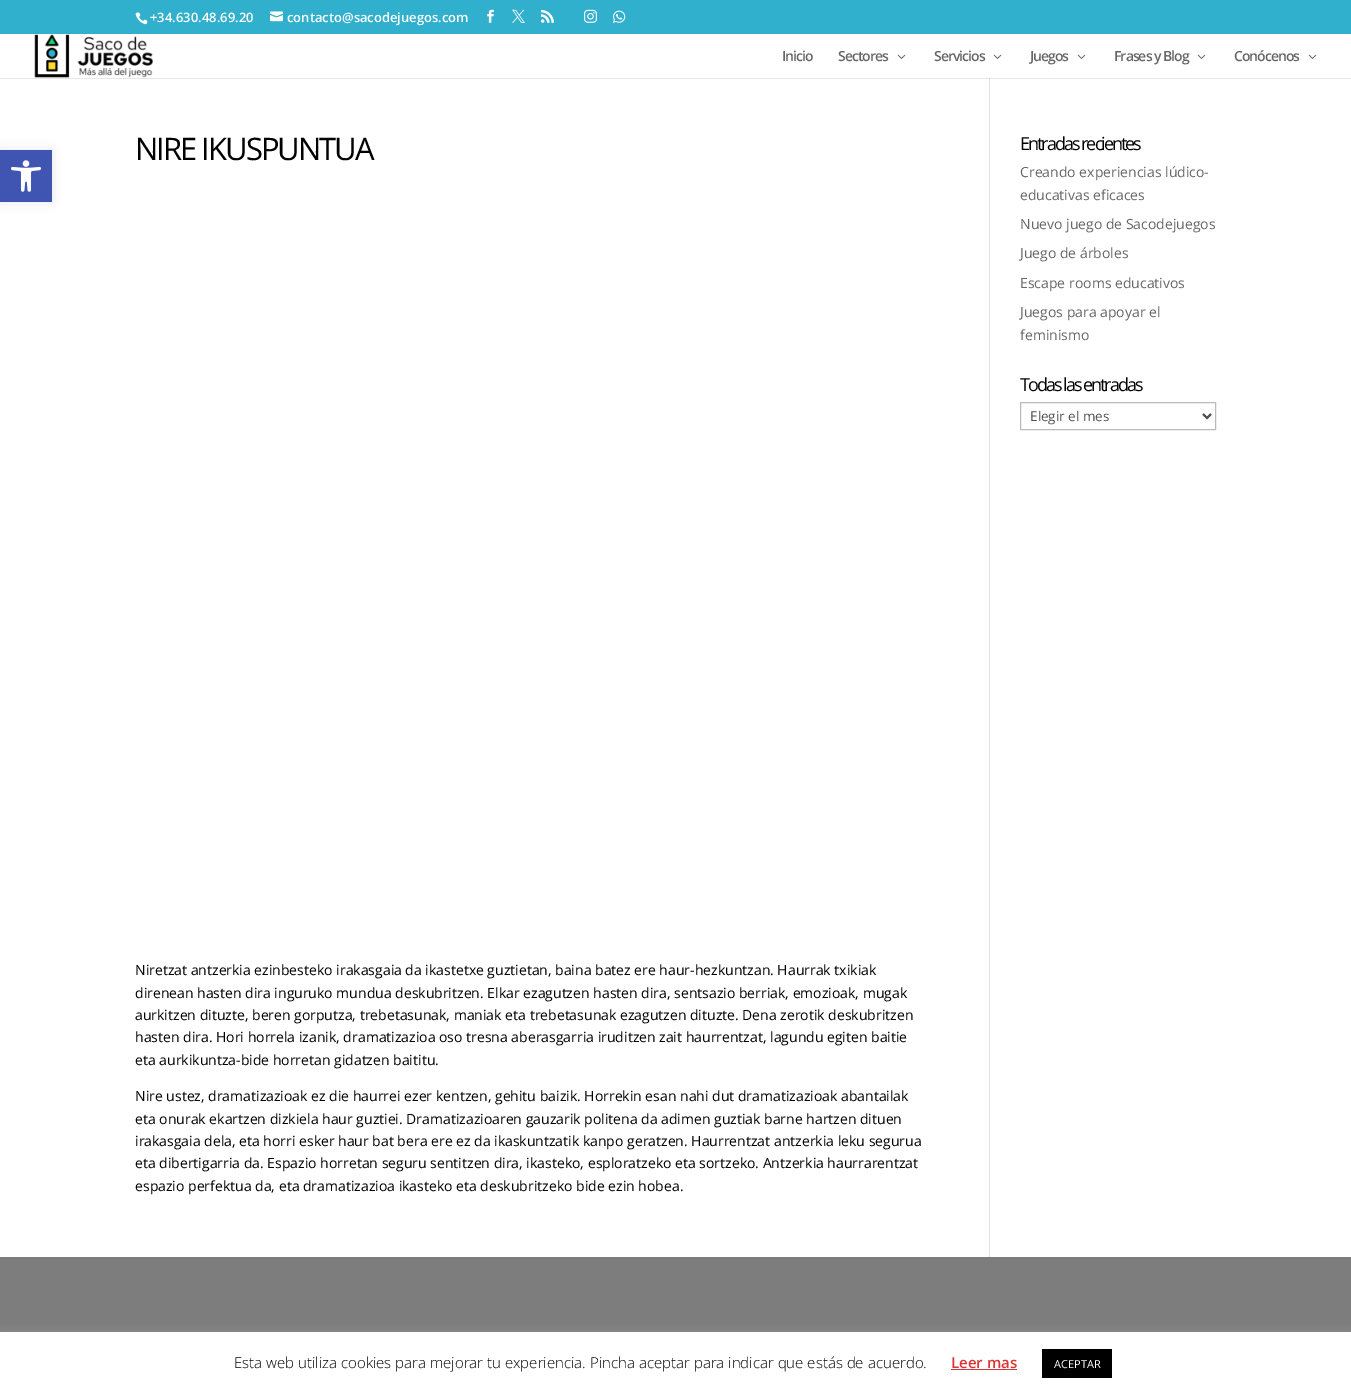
%!PS-Adobe-3.0
%%BoundingBox: 0 0 1351 1395
%%LanguageLevel: 3
%%Pages: 1
%%EndComments
%%BeginProlog
/setalpha { dup .setfillconstantalpha .setstrokeconstantalpha } def
/rrect { 5 dict begin { /r /h /w /y /x } { exch def } forall
  x r add y moveto x w add y 2 copy h add r arct x w add y h add x 1 index r arct
  x y h add x y r arct x y 2 copy exch w add exch r arct closepath end } def
/softshadow { 12 dict begin { /a /b /q /h /w /y /x } { exch def } forall gsave /was 0 def
  9 -2 -9 { dup b mul 4 div /e exch def 1 sub .425 mul 2.718 exch exp 1 add a .99 .min exch div /now exch def
    1 1 now sub 1 was sub div sub setalpha /was now def
    w h .min e 2 mul add 0 gt { x e sub y e sub w e 2 mul add h e 2 mul add
      q e add b .6 mul add w h .min 2 div e add .min 0 .max rrect fill } if } for grestore end } def
/drawimage { 5 dict begin { /h /w /y /x /name } { exch def } forall
  gsave x y translate w h scale
  w h 8 [w 0 0 h 0 0] name (r) file false 3 colorimage grestore end } def
%%EndProlog
%%BeginSetup
<< /PageSize [1351 1395] /PageUsesTransparency true >> setpagedevice
%%EndSetup
%%Page: 1 1
0 .pushpdf14devicefilter
0 1395 translate 1 -1 scale
4 setmiterlimit
1 setgray
0 0 1351 1395 rectfill
0.902 setgray
0 78 1351 1 rectfill
0 setgray
0 150 52 52 0 5 0.1 softshadow
0.251 0.329 0.698 setrgbcolor
0 150 52 52 rectfill
(images/1.raw) 11 160 30 32 drawimage
0.188 0.69 0.804 setrgbcolor
0 0 1351 34 rectfill
(images/2.raw) 135 12 13 13 drawimage
(images/3.raw) 270 11 13 11 drawimage
(images/4.raw) 487 9 7 14 drawimage
(images/5.raw) 512 9 13 14 drawimage
(images/6.raw) 541 9 13 14 drawimage
(images/7.raw) 584 9 13 14 drawimage
(images/8.raw) 613 10 13 13 drawimage
0.886 setgray
989 77 1 1180 rectfill
1 setgray
989 77 1 1 rectfill
(images/9.raw) 34 34 119 44 drawimage
(images/10.raw) 897 54 9 5 drawimage
(images/10.raw) 993 54 9 5 drawimage
(images/10.raw) 1077 54 9 5 drawimage
(images/10.raw) 1197 54 9 5 drawimage
(images/10.raw) 1308 54 9 5 drawimage
0.796 setgray
989 78 1 1 rectfill
0.733 setgray
1020.5 402.5 195 27 rectstroke
0.306 setgray
2 setlinewidth
newpath 1203 414 moveto 1207 418 lineto 1211 414 lineto stroke
0.49 setgray
0 1257 1351 75 rectfill
0.675 0.671 0.671 setrgbcolor
0 1331 1351 63 0 5 0.3 softshadow
1 setgray
0 1332 1351 63 rectfill
0.867 0.2 0.2 setrgbcolor
951 1369 66 1 rectfill
0 setgray
1042 1349 70 29 rectfill
/OpenSans-SemiBold [13 0 0 -13 0 0] selectfont
1 setgray
150 22 moveto (+34.630.48.69.20) show
287 22 moveto (contacto@sacodejuegos.com) show
/OpenSans-SemiBold [14 0 0 -14 0 0] selectfont
0.4 setgray
782 61 moveto -1 0 (Inicio) ashow
838 61 moveto -1 0 (Sectores) ashow
934 61 moveto -1 0 (Servicios) ashow
1030 61 moveto -1 0 (Juegos) ashow
1114 61 moveto -1 0 (Frases y Blog) ashow
1234 61 moveto -1 0 (Conócenos) ashow
/OpenSans-Regular [31 0 0 -31 0 0] selectfont
0 setgray
135 160 moveto -2 0 (NIRE IKUSPUNTUA) ashow
/OpenSans-Regular [14 0 0 -14 0 0] selectfont
135 975 moveto (Niretzat antzerkia ezinbesteko irakasgaia da ikastetxe guztietan, baina batez ere haur-hezkuntzan. Haurrak txikiak) show
135 998 moveto (direnean hasten dira inguruko mundua deskubritzen. Elkar ezagutzen hasten dira, sentsazio berriak, emozioak, mugak) show
135 1020 moveto (aurkitzen dituzte, beren gorputza, trebetasunak, maniak eta trebetasunak ezagutzen dituzte. Dena zerotik deskubritzen) show
135 1042 moveto (hasten dira. Hori horrela izanik, dramatizazioa oso tresna aberasgarria iruditzen zait haurrentzat, lagundu egiten baitie) show
135 1065 moveto (eta aurkikuntza-bide horretan gidatzen baititu.) show
135 1101 moveto (Nire ustez, dramatizazioak ez die haurrei ezer kentzen, gehitu baizik. Horrekin esan nahi dut dramatizazioak abantailak) show
135 1124 moveto (eta onurak ekartzen dizkiela haur guztiei. Dramatizazioaren gauzarik politena da adimen guztiak barne hartzen dituen) show
135 1146 moveto (irakasgaia dela, eta horri esker haur bat bera ere ez da ikaskuntzatik kanpo geratzen. Haurrentzat antzerkia leku segurua) show
135 1168 moveto (eta dibertigarria da. Espazio horretan seguru sentitzen dira, ikasteko, esploratzeko eta sortzeko. Antzerkia haurrarentzat) show
135 1191 moveto (espazio perfektua da, eta dramatizazioa ikasteko eta deskubritzeko bide ezin hobea.) show
/OpenSans-Regular [18 0 0 -18 0 0] selectfont
1020 150 moveto -2 0 (Entradas recientes) ashow
/OpenSans-Regular [14 0 0 -14 0 0] selectfont
0.4 setgray
1020 177 moveto (Creando experiencias lúdico-) show
1020 200 moveto (educativas eficaces) show
1020 229 moveto (Nuevo juego de Sacodejuegos) show
1020 258 moveto (Juego de árboles) show
1020 288 moveto (Escape rooms educativos) show
1020 317 moveto (Juegos para apoyar el) show
1020 340 moveto (feminismo) show
/OpenSans-Regular [18 0 0 -18 0 0] selectfont
0 setgray
1020 391 moveto -2 0 (Todas las entradas) ashow
/OpenSans-Regular [13.5 0 0 -13.5 0 0] selectfont
0.306 setgray
1030 421 moveto (Elegir el mes) show
/OpenSans-Light [15 0 0 -15 0 0] selectfont
0 setgray
234 1368 moveto (Esta web utiliza cookies para mejorar tu experiencia. Pincha aceptar para indicar que estás de acuerdo.) show
/OpenSans-SemiBold [15 0 0 -15 0 0] selectfont
0.867 0.2 0.2 setrgbcolor
951 1368 moveto (Leer mas) show
/OpenSans-Regular [11 0 0 -11 0 0] selectfont
1 setgray
1054 1368 moveto (ACEPTAR) show
.poppdf14devicefilter showpage
%%EOF
